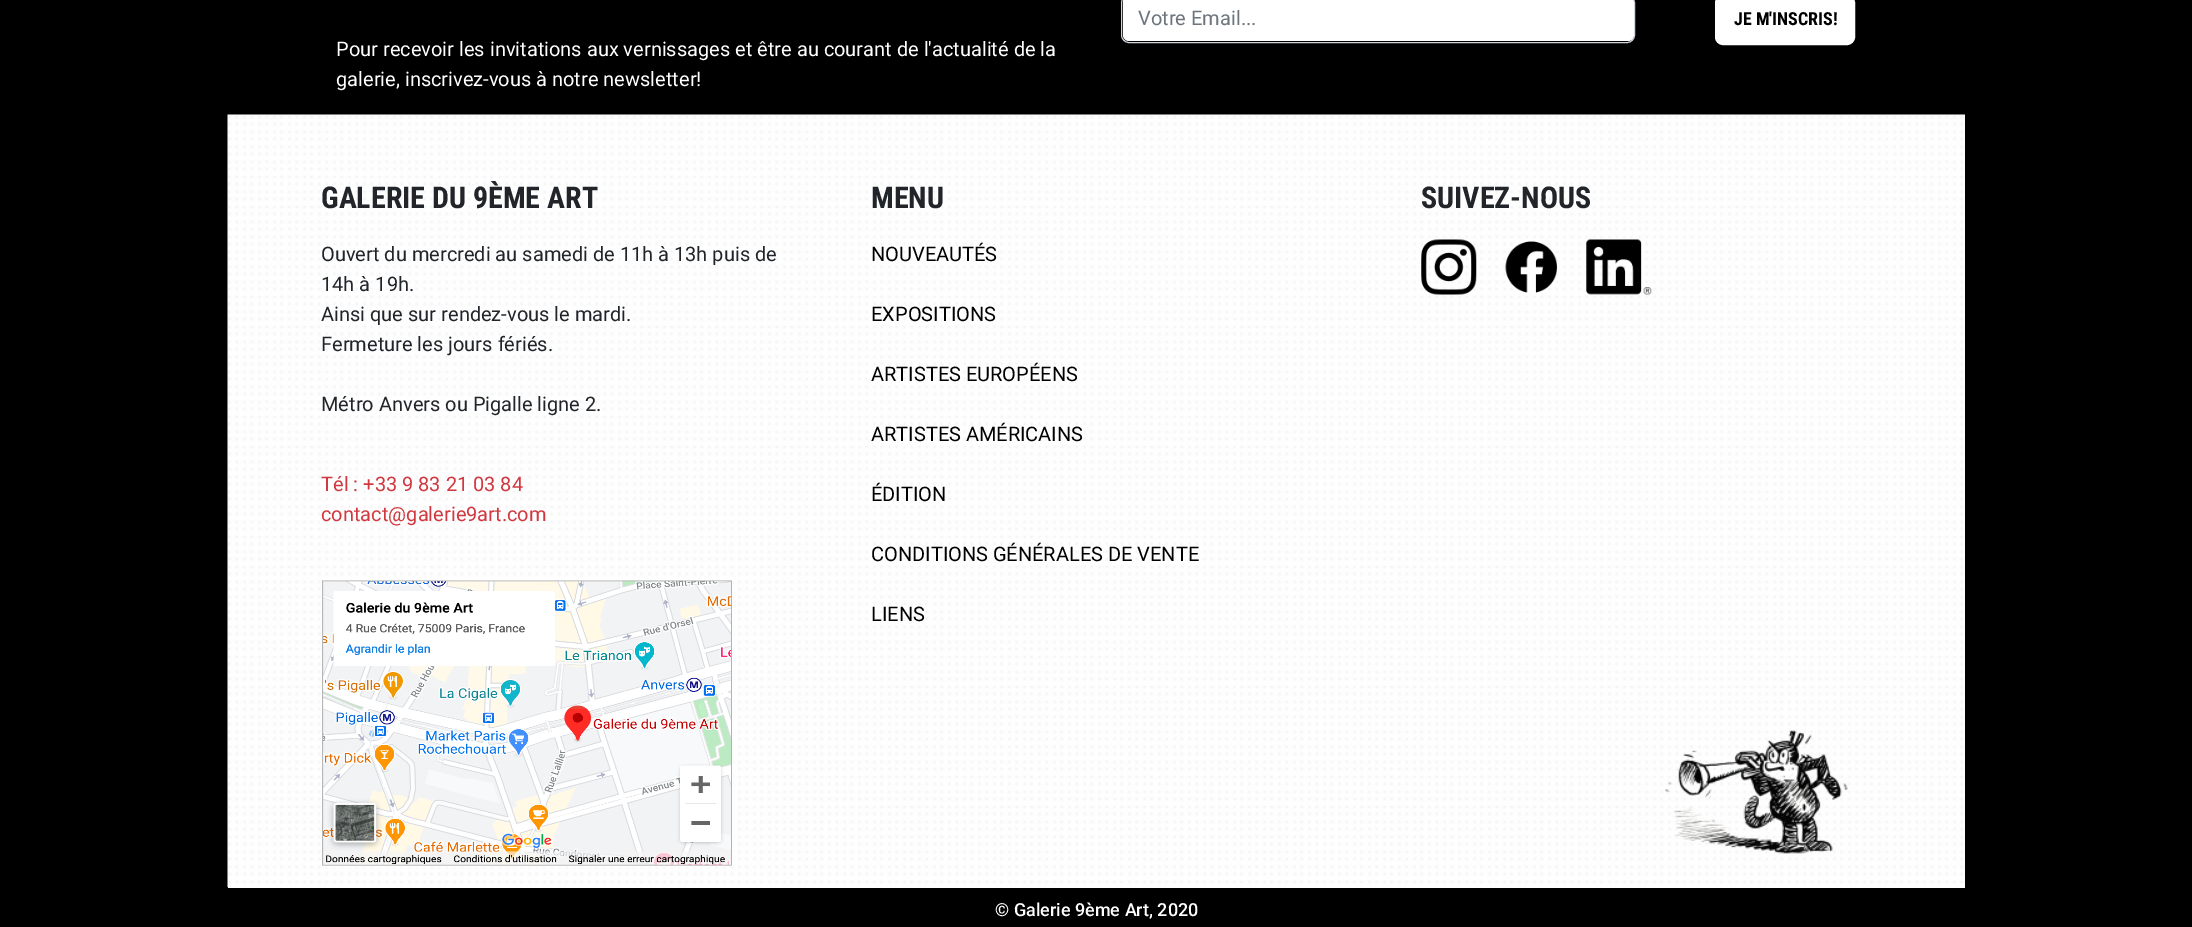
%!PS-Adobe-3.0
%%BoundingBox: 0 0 2192 927
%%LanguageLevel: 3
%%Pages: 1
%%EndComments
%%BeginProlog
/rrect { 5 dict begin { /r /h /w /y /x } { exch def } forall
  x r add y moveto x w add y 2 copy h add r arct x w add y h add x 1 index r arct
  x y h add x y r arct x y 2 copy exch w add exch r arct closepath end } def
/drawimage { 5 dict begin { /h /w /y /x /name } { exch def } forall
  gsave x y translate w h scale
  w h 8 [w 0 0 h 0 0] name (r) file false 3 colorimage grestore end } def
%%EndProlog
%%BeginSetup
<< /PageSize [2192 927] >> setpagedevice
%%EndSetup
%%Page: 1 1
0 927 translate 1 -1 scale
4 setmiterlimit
0 setgray
0 0 2192 927 rectfill
1 setgray
228 887 1737 1 rectfill
1123 -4 511 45 6 rrect fill
0.808 0.831 0.855 setrgbcolor
1121.5 -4.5 513 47 7.5 rrect stroke
1 setgray
1716.5 -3.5 137 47 6.5 rrect gsave fill grestore
3 setlinewidth
stroke
(images/1.raw) 227 114 1738 773 drawimage
(images/2.raw) 1665 730 183 124 drawimage
(images/3.raw) 321 579 412 288 drawimage
(images/4.raw) 1421 239 56 56 drawimage
(images/5.raw) 1505 241 52 52 drawimage
(images/6.raw) 1586 239 66 56 drawimage
/Roboto-Regular [20 0 0 -20 0 0] selectfont
0.424 0.459 0.49 setrgbcolor
1138 25 moveto (Votre Email...) show
/RobotoCondensed-Bold [18 0 0 -18 0 0] selectfont
0 setgray
1734 25 moveto (JE M'INSCRIS!) show
/Roboto-Regular [20 0 0 -20 0 0] selectfont
1 setgray
336 56 moveto (Pour recevoir les invitations aux vernissages et être au courant de l'actualité de la) show
336 86 moveto (galerie, inscrivez-vous à notre newsletter!) show
/RobotoCondensed-Bold [30 0 0 -30 0 0] selectfont
0.129 0.145 0.161 setrgbcolor
321 208 moveto (GALERIE DU 9ÈME ART) show
/Roboto-Regular [20 0 0 -20 0 0] selectfont
321 261 moveto (Ouvert du mercredi au samedi de 11h à 13h puis de) show
321 291 moveto (14h à 19h.) show
321 321 moveto (Ainsi que sur rendez-vous le mardi.) show
321 351 moveto (Fermeture les jours fériés.) show
321 411 moveto (Métro Anvers ou Pigalle ligne 2.) show
0.824 0.22 0.247 setrgbcolor
321 491 moveto (Tél : +33 9 83 21 03 84) show
321 521 moveto (contact@galerie9art.com) show
/RobotoCondensed-Bold [30 0 0 -30 0 0] selectfont
0.129 0.145 0.161 setrgbcolor
871 208 moveto (MENU) show
/Roboto-Regular [20 0 0 -20 0 0] selectfont
0 setgray
871 261 moveto (NOUVEAUTÉS) show
871 321 moveto (EXPOSITIONS) show
871 381 moveto (ARTISTES EUROPÉENS) show
871 441 moveto (ARTISTES AMÉRICAINS) show
871 501 moveto (ÉDITION) show
871 561 moveto (CONDITIONS GÉNÉRALES DE VENTE) show
871 621 moveto (LIENS) show
/RobotoCondensed-Bold [30 0 0 -30 0 0] selectfont
0.129 0.145 0.161 setrgbcolor
1421 208 moveto (SUIVEZ-NOUS) show
/Roboto-Medium [18 0 0 -18 0 0] selectfont
1 setgray
995 916 moveto (© Galerie 9ème Art, 2020) show
showpage
%%EOF
